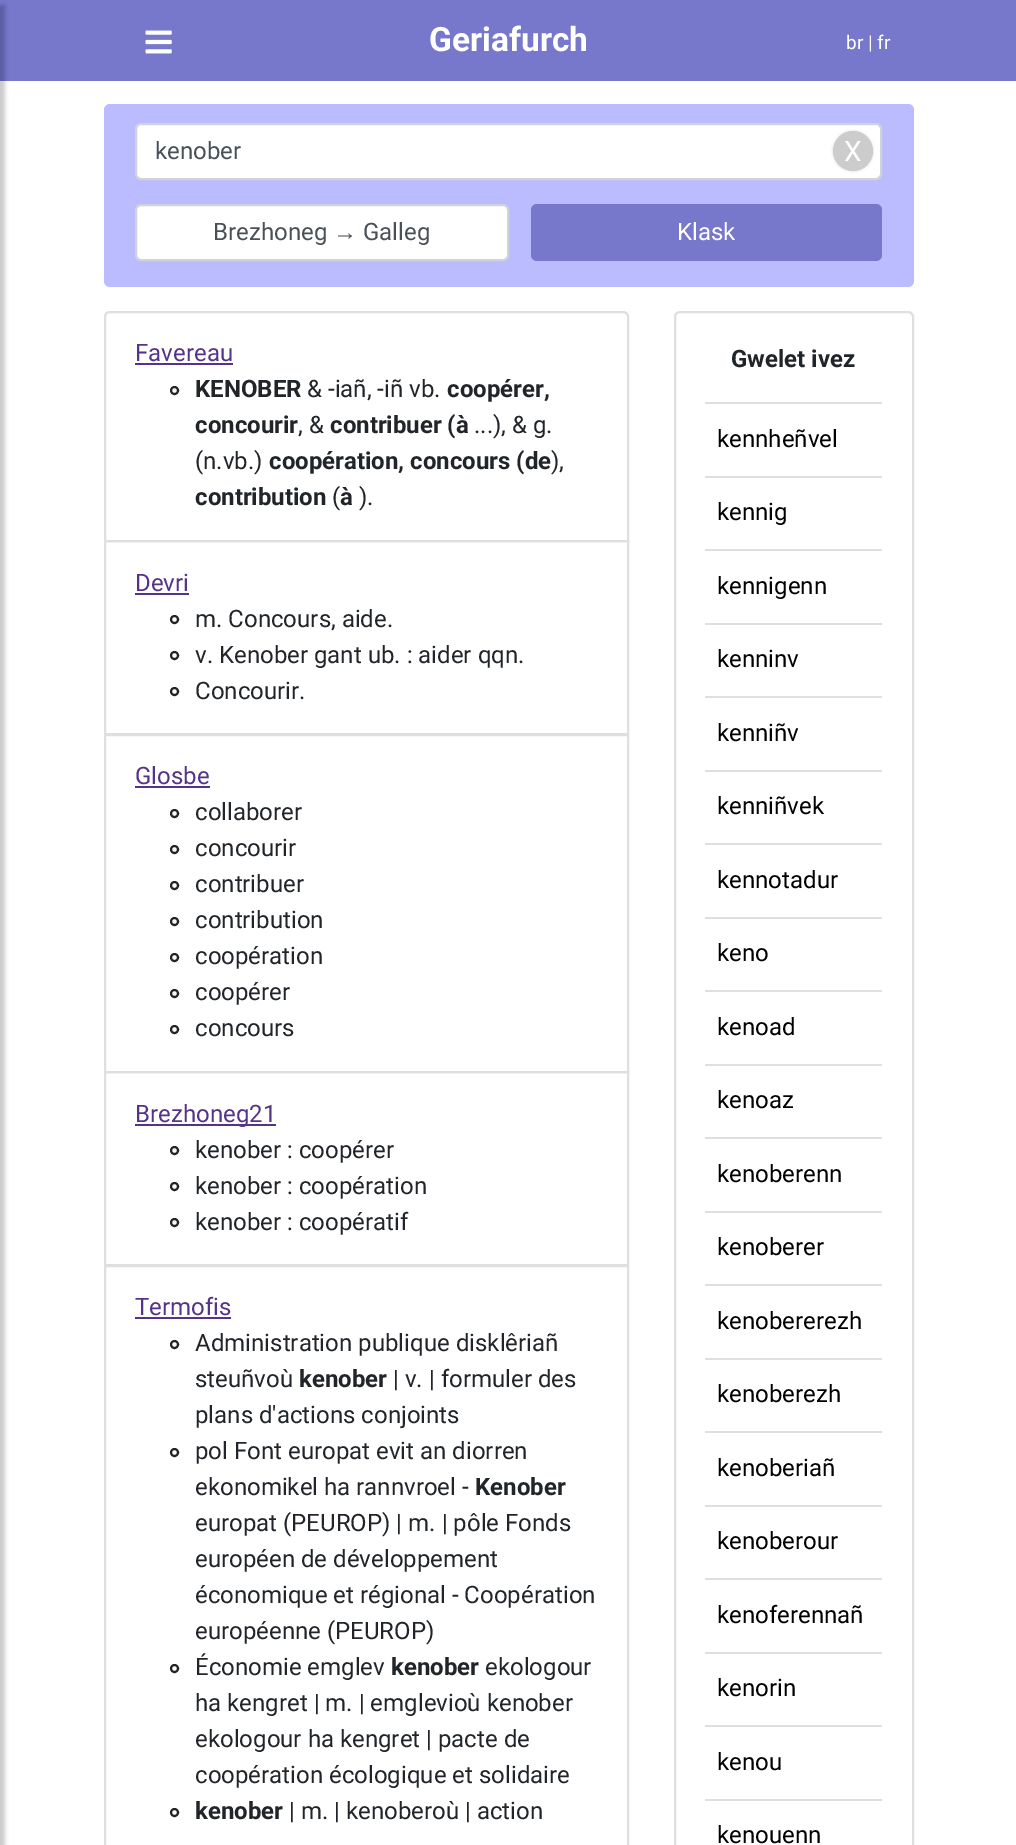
%!PS-Adobe-3.0
%%BoundingBox: 0 0 1016 1845
%%LanguageLevel: 3
%%Pages: 1
%%EndComments
%%BeginProlog
/setalpha { dup .setfillconstantalpha .setstrokeconstantalpha } def
/rrect { 5 dict begin { /r /h /w /y /x } { exch def } forall
  x r add y moveto x w add y 2 copy h add r arct x w add y h add x 1 index r arct
  x y h add x y r arct x y 2 copy exch w add exch r arct closepath end } def
/softshadow { 12 dict begin { /a /b /q /h /w /y /x } { exch def } forall gsave /was 0 def
  9 -2 -9 { dup b mul 4 div /e exch def 1 sub .425 mul 2.718 exch exp 1 add a .99 .min exch div /now exch def
    1 1 now sub 1 was sub div sub setalpha /was now def
    w h .min e 2 mul add 0 gt { x e sub y e sub w e 2 mul add h e 2 mul add
      q e add b .6 mul add w h .min 2 div e add .min 0 .max rrect fill } if } for grestore end } def
/drawimage { 5 dict begin { /h /w /y /x /name } { exch def } forall
  gsave x y translate w h scale
  w h 8 [w 0 0 h 0 0] name (r) file false 3 colorimage grestore end } def
%%EndProlog
%%BeginSetup
<< /PageSize [1016 1845] /PageUsesTransparency true >> setpagedevice
%%EndSetup
%%Page: 1 1
0 .pushpdf14devicefilter
0 1845 translate 1 -1 scale
4 setmiterlimit
1 setgray
0 0 1016 1845 rectfill
0.467 0.467 0.8 setrgbcolor
0 0 1016 81 rectfill
0 setgray
-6 5 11 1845 0 2 0.2 softshadow
(images/1.raw) 145 30 27 24 drawimage
0.733 0.733 1 setrgbcolor
104 104 810 183 6 rrect fill
1 setgray
136 124 745 55 5 rrect gsave fill grestore
0.808 0.831 0.855 setrgbcolor
2 setlinewidth
stroke
0.867 setgray
833 131 40 40 20 1.5 1 softshadow
0.8 setgray
newpath 853 151 20 0 360 arc closepath fill
1 setgray
136 205 372 55 5 rrect gsave fill grestore
0.808 0.831 0.855 setrgbcolor
stroke
0.467 0.467 0.8 setrgbcolor
531 204 351 57 6 rrect fill
0.875 setgray
newpath 110 312 moveto 623 312 lineto 626 312 628 314 628 317 curveto 628 541 lineto 105 541 lineto 105 317 lineto 105 314 107 312 110 312 curveto closepath stroke
0.333 0.2 0.533 setrgbcolor
135 363 98 2 rectfill
0.129 0.145 0.161 setrgbcolor
newpath 174.5 390.5 3.5 0 360 arc closepath stroke
0.875 setgray
105 541 523 193 rectstroke
0.333 0.2 0.533 setrgbcolor
135 593 54 2 rectfill
0.129 0.145 0.161 setrgbcolor
newpath 174.5 619.5 3.5 0 360 arc closepath stroke
newpath 174.5 655.5 3.5 0 360 arc closepath stroke
newpath 174.5 691.5 3.5 0 360 arc closepath stroke
0.875 setgray
105 735 523 337 rectstroke
0.333 0.2 0.533 setrgbcolor
135 786 75 2 rectfill
0.129 0.145 0.161 setrgbcolor
newpath 174.5 813.5 3.5 0 360 arc closepath stroke
newpath 174.5 849.5 3.5 0 360 arc closepath stroke
newpath 174.5 885.5 3.5 0 360 arc closepath stroke
newpath 174.5 921.5 3.5 0 360 arc closepath stroke
newpath 174.5 957.5 3.5 0 360 arc closepath stroke
newpath 174.5 993.5 3.5 0 360 arc closepath stroke
newpath 174.5 1029.5 3.5 0 360 arc closepath stroke
0.875 setgray
105 1072 523 193 rectstroke
0.333 0.2 0.533 setrgbcolor
135 1124 141 2 rectfill
0.129 0.145 0.161 setrgbcolor
newpath 174.5 1150.5 3.5 0 360 arc closepath stroke
newpath 174.5 1186.5 3.5 0 360 arc closepath stroke
newpath 174.5 1222.5 3.5 0 360 arc closepath stroke
0.875 setgray
105 1266 523 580 rectstroke
0.333 0.2 0.533 setrgbcolor
135 1317 96 2 rectfill
0.129 0.145 0.161 setrgbcolor
newpath 174.5 1344.5 3.5 0 360 arc closepath stroke
newpath 174.5 1452.5 3.5 0 360 arc closepath stroke
newpath 174.5 1668.5 3.5 0 360 arc closepath stroke
newpath 174.5 1812.5 3.5 0 360 arc closepath stroke
0.875 setgray
675 312 238 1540 5 rrect stroke
705 402 177 2 rectfill
705 476 177 2 rectfill
705 549 177 2 rectfill
705 623 177 2 rectfill
705 696 177 2 rectfill
705 770 177 2 rectfill
705 843 177 2 rectfill
705 917 177 2 rectfill
705 990 177 2 rectfill
705 1064 177 2 rectfill
705 1137 177 2 rectfill
705 1211 177 2 rectfill
705 1284 177 2 rectfill
705 1358 177 2 rectfill
705 1431 177 2 rectfill
705 1505 177 2 rectfill
705 1578 177 2 rectfill
705 1652 177 2 rectfill
705 1725 177 2 rectfill
705 1799 177 2 rectfill
/Roboto-Bold [33.5 0 0 -33.5 0 0] selectfont
1 setgray
429 51 moveto (Geriafurch) show
/Roboto-Regular [19 0 0 -19 0 0] selectfont
846 49 moveto (br | fr) show
/Roboto-Regular [24 0 0 -24 0 0] selectfont
0.286 0.314 0.341 setrgbcolor
155 159 moveto (kenober) show
/Roboto-Regular [28 0 0 -28 0 0] selectfont
1 setgray
844 161 moveto (X) show
/Roboto-Regular [24 0 0 -24 0 0] selectfont
0.286 0.314 0.341 setrgbcolor
213 240 moveto (Brezhoneg) show
/LiberationSans-Regular [24 0 0 -24 0 0] selectfont
333 240 moveto (→) show
/Roboto-Regular [24 0 0 -24 0 0] selectfont
363 240 moveto (Galleg) show
1 setgray
677 240 moveto (Klask) show
0.333 0.2 0.533 setrgbcolor
135 361 moveto (Favereau) show
/Roboto-Bold [24 0 0 -24 0 0] selectfont
0.129 0.145 0.161 setrgbcolor
195 397 moveto (KENOBER) show
/Roboto-Regular [24 0 0 -24 0 0] selectfont
307 397 moveto (& -iañ, -iñ vb.) show
/Roboto-Bold [24 0 0 -24 0 0] selectfont
447 397 moveto (coopérer,) show
195 433 moveto (concourir) show
/Roboto-Regular [24 0 0 -24 0 0] selectfont
298 433 moveto (, &) show
/Roboto-Bold [24 0 0 -24 0 0] selectfont
330 433 moveto (contribuer \(à) show
/Roboto-Regular [24 0 0 -24 0 0] selectfont
474 433 moveto (...\), & g.) show
195 469 moveto (\(n.vb.\)) show
/Roboto-Bold [24 0 0 -24 0 0] selectfont
269 469 moveto (coopération, concours \(de) show
/Roboto-Regular [24 0 0 -24 0 0] selectfont
551 469 moveto (\),) show
/Roboto-Bold [24 0 0 -24 0 0] selectfont
195 505 moveto (contribution) show
/Roboto-Regular [24 0 0 -24 0 0] selectfont
332 505 moveto (\() show
/Roboto-Bold [24 0 0 -24 0 0] selectfont
340 505 moveto (à) show
/Roboto-Regular [24 0 0 -24 0 0] selectfont
359 505 moveto (\).) show
0.333 0.2 0.533 setrgbcolor
135 591 moveto (Devri) show
0.129 0.145 0.161 setrgbcolor
195 627 moveto (m. Concours, aide.) show
195 663 moveto (v. Kenober gant ub. : aider qqn.) show
195 699 moveto (Concourir.) show
0.333 0.2 0.533 setrgbcolor
135 784 moveto (Glosbe) show
0.129 0.145 0.161 setrgbcolor
195 820 moveto (collaborer) show
195 856 moveto (concourir) show
195 892 moveto (contribuer) show
195 928 moveto (contribution) show
195 964 moveto (coopération) show
195 1000 moveto (coopérer) show
195 1036 moveto (concours) show
0.333 0.2 0.533 setrgbcolor
135 1122 moveto (Brezhoneg21) show
0.129 0.145 0.161 setrgbcolor
195 1158 moveto (kenober : coopérer) show
195 1194 moveto (kenober : coopération) show
195 1230 moveto (kenober : coopératif) show
0.333 0.2 0.533 setrgbcolor
135 1315 moveto (Termofis) show
0.129 0.145 0.161 setrgbcolor
195 1351 moveto (Administration publique disklêriañ) show
195 1387 moveto (steuñvoù) show
/Roboto-Bold [24 0 0 -24 0 0] selectfont
299 1387 moveto (kenober) show
/Roboto-Regular [24 0 0 -24 0 0] selectfont
393 1387 moveto (| v. | formuler des) show
195 1423 moveto (plans d'actions conjoints) show
195 1459 moveto (pol Font europat evit an diorren) show
195 1495 moveto (ekonomikel ha rannvroel -) show
/Roboto-Bold [24 0 0 -24 0 0] selectfont
475 1495 moveto (Kenober) show
/Roboto-Regular [24 0 0 -24 0 0] selectfont
195 1531 moveto (europat \(PEUROP\) | m. | pôle Fonds) show
195 1567 moveto (européen de développement) show
195 1603 moveto (économique et régional - Coopération) show
195 1639 moveto (européenne \(PEUROP\)) show
195 1675 moveto (Économie emglev) show
/Roboto-Bold [24 0 0 -24 0 0] selectfont
391 1675 moveto (kenober) show
/Roboto-Regular [24 0 0 -24 0 0] selectfont
485 1675 moveto (ekologour) show
195 1711 moveto (ha kengret | m. | emglevioù kenober) show
195 1747 moveto (ekologour ha kengret | pacte de) show
195 1783 moveto (coopération écologique et solidaire) show
/Roboto-Bold [24 0 0 -24 0 0] selectfont
195 1819 moveto (kenober) show
/Roboto-Regular [24 0 0 -24 0 0] selectfont
289 1819 moveto (| m. | kenoberoù | action) show
/Roboto-Bold [24 0 0 -24 0 0] selectfont
731 367 moveto (Gwelet ivez) show
/Roboto-Regular [24 0 0 -24 0 0] selectfont
0 setgray
717 447 moveto (kennheñvel) show
717 520 moveto (kennig) show
717 594 moveto (kennigenn) show
717 667 moveto (kenninv) show
717 741 moveto (kenniñv) show
717 814 moveto (kenniñvek) show
717 888 moveto (kennotadur) show
717 961 moveto (keno) show
717 1035 moveto (kenoad) show
717 1108 moveto (kenoaz) show
717 1182 moveto (kenoberenn) show
717 1255 moveto (kenoberer) show
717 1329 moveto (kenobererezh) show
717 1402 moveto (kenoberezh) show
717 1476 moveto (kenoberiañ) show
717 1549 moveto (kenoberour) show
717 1623 moveto (kenoferennañ) show
717 1696 moveto (kenorin) show
717 1770 moveto (kenou) show
717 1843 moveto (kenouenn) show
.poppdf14devicefilter showpage
%%EOF
